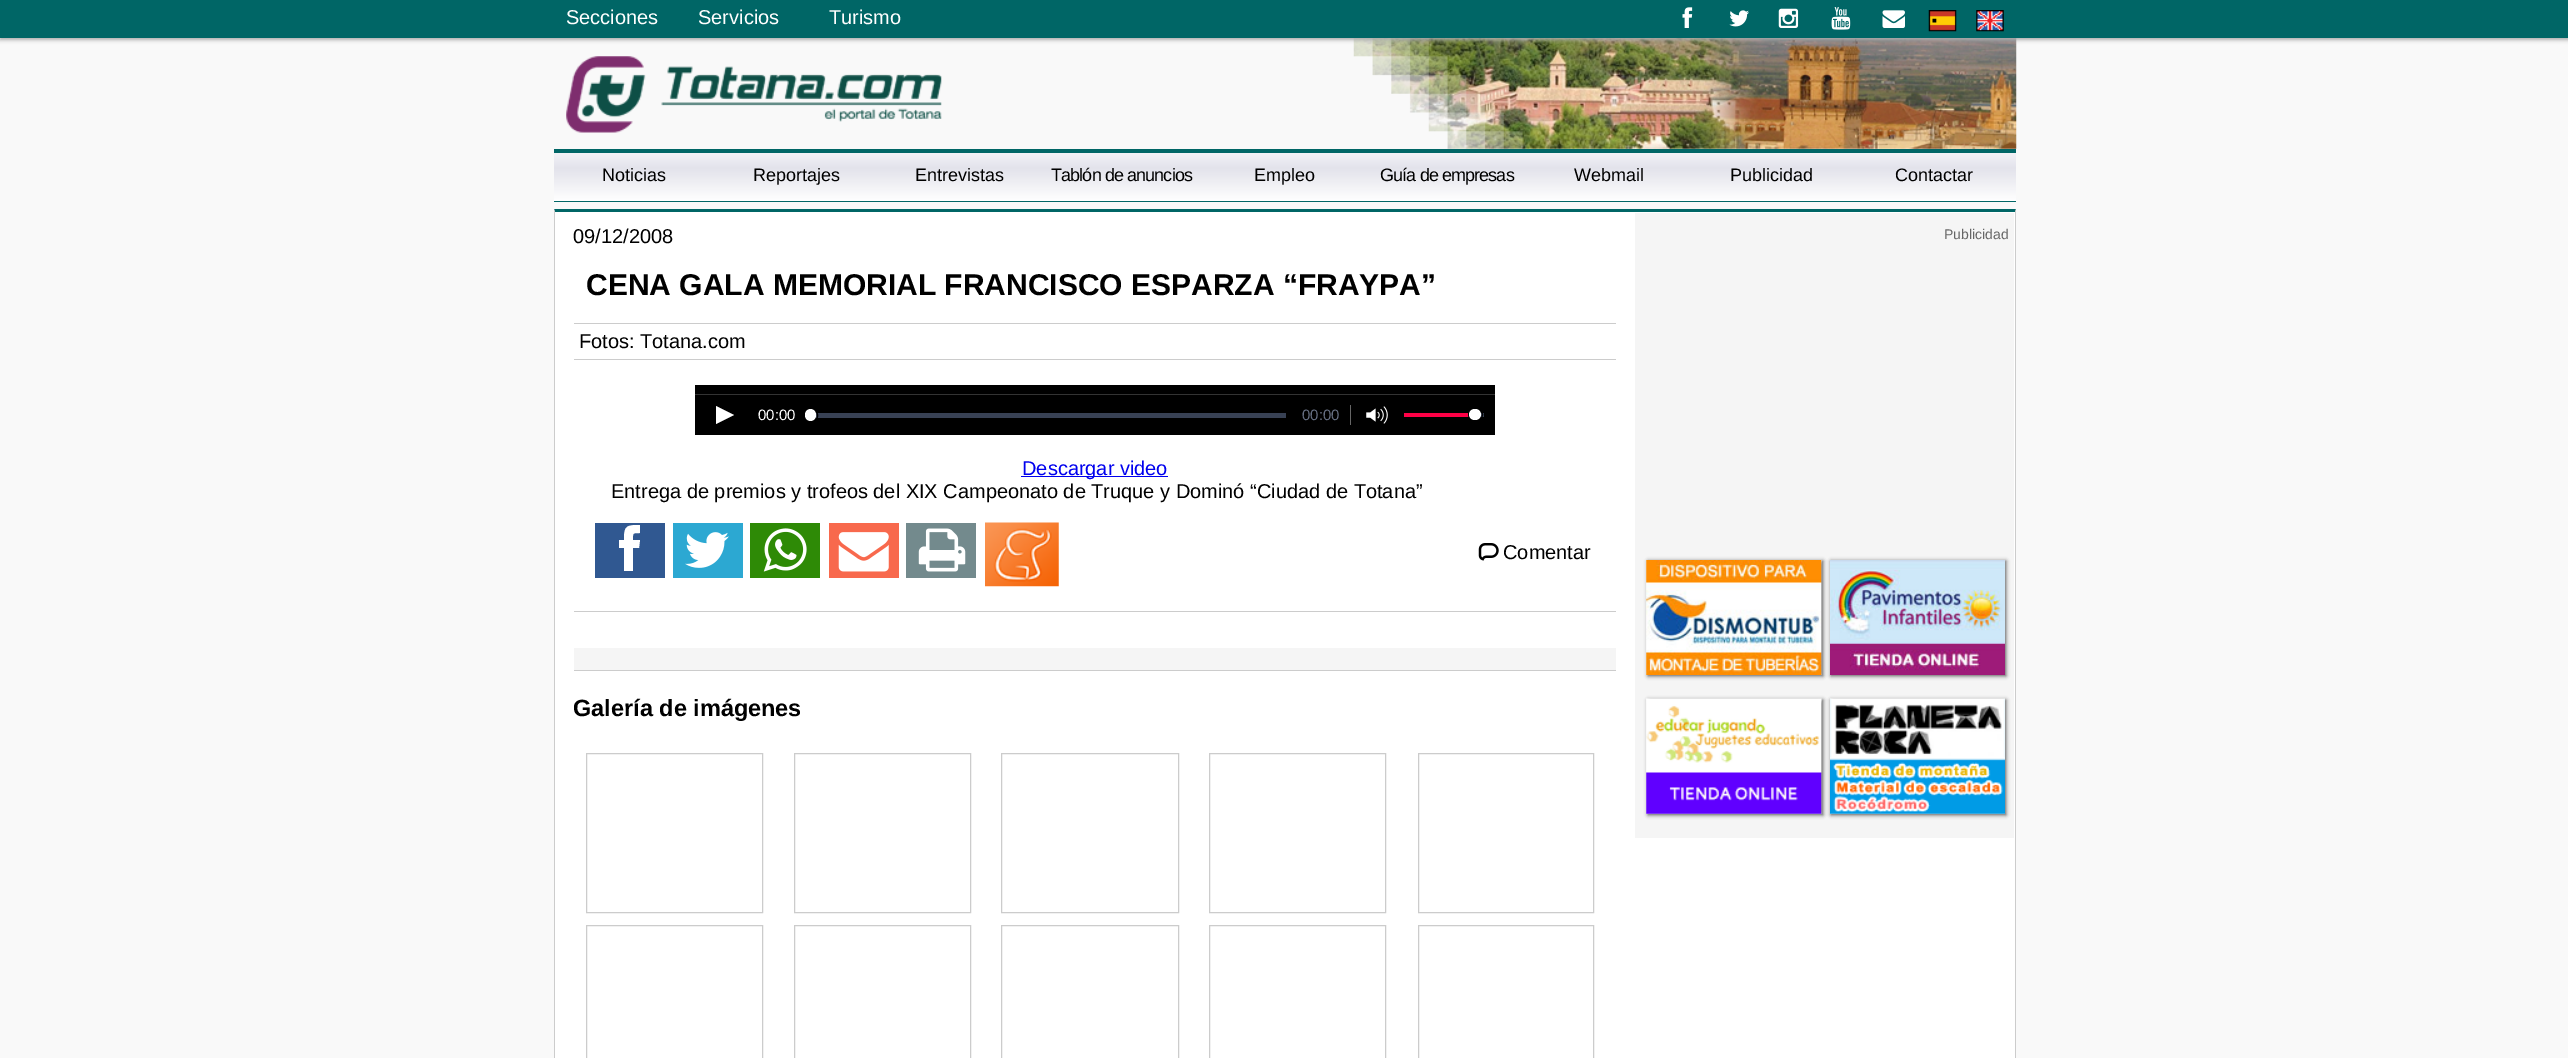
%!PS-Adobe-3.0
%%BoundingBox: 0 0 2568 1058
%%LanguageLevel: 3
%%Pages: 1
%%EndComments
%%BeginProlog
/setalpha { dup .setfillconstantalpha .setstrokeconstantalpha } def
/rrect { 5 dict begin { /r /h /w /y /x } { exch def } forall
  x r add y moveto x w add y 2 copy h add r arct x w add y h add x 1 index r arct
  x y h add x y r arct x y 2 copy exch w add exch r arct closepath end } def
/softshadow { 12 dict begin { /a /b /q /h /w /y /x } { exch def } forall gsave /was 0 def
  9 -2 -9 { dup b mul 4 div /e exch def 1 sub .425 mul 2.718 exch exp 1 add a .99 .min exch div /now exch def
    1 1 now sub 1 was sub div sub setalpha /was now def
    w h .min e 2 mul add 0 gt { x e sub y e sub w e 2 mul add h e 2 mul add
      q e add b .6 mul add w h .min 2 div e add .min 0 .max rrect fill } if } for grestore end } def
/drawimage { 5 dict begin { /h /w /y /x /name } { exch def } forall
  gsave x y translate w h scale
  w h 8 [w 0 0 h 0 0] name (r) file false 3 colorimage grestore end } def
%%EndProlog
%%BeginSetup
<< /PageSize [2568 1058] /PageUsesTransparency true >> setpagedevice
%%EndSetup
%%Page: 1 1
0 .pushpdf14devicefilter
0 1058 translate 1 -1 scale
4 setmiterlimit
0.976 setgray
0 0 2568 1058 rectfill
(images/1.raw) 1353 38 664 111 drawimage
0.667 setgray
0 3 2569 37 0 2 1 softshadow
0 0.4 0.4 setrgbcolor
0 0 2568 38 rectfill
(images/2.raw) 566 56 376 77 drawimage
554 149 1462 4 rectfill
554 201 1462 1 rectfill
(images/3.raw) 1682 7 11 21 drawimage
(images/4.raw) 1729 10 20 17 drawimage
(images/5.raw) 1778 8 21 20 drawimage
(images/6.raw) 1831 7 20 23 drawimage
(images/7.raw) 1882 10 23 18 drawimage
(images/8.raw) 1928 10 29 22 drawimage
(images/9.raw) 1976 10 28 22 drawimage
gsave newpath 554 153 moveto 716 153 lineto 716 201 lineto 554 201 lineto closepath clip newpath
<< /ShadingType 2 /ColorSpace /DeviceRGB /Coords [635 153 635 201] /Extend [true true] /Function << /FunctionType 3 /Domain [0 1] /Functions [<< /FunctionType 2 /Domain [0 1] /C0 [0.949 0.949 0.965] /C1 [0.89 0.89 0.922] /N 1 >> << /FunctionType 2 /Domain [0 1] /C0 [0.89 0.89 0.922] /C1 [1 1 1] /N 1 >>] /Bounds [0.32] /Encode [0 1 0 1] >> >> shfill grestore
gsave newpath 716 153 moveto 879 153 lineto 879 201 lineto 716 201 lineto closepath clip newpath
<< /ShadingType 2 /ColorSpace /DeviceRGB /Coords [798 153 798 201] /Extend [true true] /Function << /FunctionType 3 /Domain [0 1] /Functions [<< /FunctionType 2 /Domain [0 1] /C0 [0.949 0.949 0.965] /C1 [0.89 0.89 0.922] /N 1 >> << /FunctionType 2 /Domain [0 1] /C0 [0.89 0.89 0.922] /C1 [1 1 1] /N 1 >>] /Bounds [0.32] /Encode [0 1 0 1] >> >> shfill grestore
gsave newpath 879 153 moveto 1041 153 lineto 1041 201 lineto 879 201 lineto closepath clip newpath
<< /ShadingType 2 /ColorSpace /DeviceRGB /Coords [960 153 960 201] /Extend [true true] /Function << /FunctionType 3 /Domain [0 1] /Functions [<< /FunctionType 2 /Domain [0 1] /C0 [0.949 0.949 0.965] /C1 [0.89 0.89 0.922] /N 1 >> << /FunctionType 2 /Domain [0 1] /C0 [0.89 0.89 0.922] /C1 [1 1 1] /N 1 >>] /Bounds [0.32] /Encode [0 1 0 1] >> >> shfill grestore
gsave newpath 1041 153 moveto 1204 153 lineto 1204 201 lineto 1041 201 lineto closepath clip newpath
<< /ShadingType 2 /ColorSpace /DeviceRGB /Coords [1123 153 1123 201] /Extend [true true] /Function << /FunctionType 3 /Domain [0 1] /Functions [<< /FunctionType 2 /Domain [0 1] /C0 [0.949 0.949 0.965] /C1 [0.89 0.89 0.922] /N 1 >> << /FunctionType 2 /Domain [0 1] /C0 [0.89 0.89 0.922] /C1 [1 1 1] /N 1 >>] /Bounds [0.32] /Encode [0 1 0 1] >> >> shfill grestore
gsave newpath 1204 153 moveto 1366 153 lineto 1366 201 lineto 1204 201 lineto closepath clip newpath
<< /ShadingType 2 /ColorSpace /DeviceRGB /Coords [1285 153 1285 201] /Extend [true true] /Function << /FunctionType 3 /Domain [0 1] /Functions [<< /FunctionType 2 /Domain [0 1] /C0 [0.949 0.949 0.965] /C1 [0.89 0.89 0.922] /N 1 >> << /FunctionType 2 /Domain [0 1] /C0 [0.89 0.89 0.922] /C1 [1 1 1] /N 1 >>] /Bounds [0.32] /Encode [0 1 0 1] >> >> shfill grestore
gsave newpath 1366 153 moveto 1529 153 lineto 1529 201 lineto 1366 201 lineto closepath clip newpath
<< /ShadingType 2 /ColorSpace /DeviceRGB /Coords [1448 153 1448 201] /Extend [true true] /Function << /FunctionType 3 /Domain [0 1] /Functions [<< /FunctionType 2 /Domain [0 1] /C0 [0.949 0.949 0.965] /C1 [0.89 0.89 0.922] /N 1 >> << /FunctionType 2 /Domain [0 1] /C0 [0.89 0.89 0.922] /C1 [1 1 1] /N 1 >>] /Bounds [0.32] /Encode [0 1 0 1] >> >> shfill grestore
gsave newpath 1529 153 moveto 1691 153 lineto 1691 201 lineto 1529 201 lineto closepath clip newpath
<< /ShadingType 2 /ColorSpace /DeviceRGB /Coords [1610 153 1610 201] /Extend [true true] /Function << /FunctionType 3 /Domain [0 1] /Functions [<< /FunctionType 2 /Domain [0 1] /C0 [0.949 0.949 0.965] /C1 [0.89 0.89 0.922] /N 1 >> << /FunctionType 2 /Domain [0 1] /C0 [0.89 0.89 0.922] /C1 [1 1 1] /N 1 >>] /Bounds [0.32] /Encode [0 1 0 1] >> >> shfill grestore
gsave newpath 1691 153 moveto 1854 153 lineto 1854 201 lineto 1691 201 lineto closepath clip newpath
<< /ShadingType 2 /ColorSpace /DeviceRGB /Coords [1773 153 1773 201] /Extend [true true] /Function << /FunctionType 3 /Domain [0 1] /Functions [<< /FunctionType 2 /Domain [0 1] /C0 [0.949 0.949 0.965] /C1 [0.89 0.89 0.922] /N 1 >> << /FunctionType 2 /Domain [0 1] /C0 [0.89 0.89 0.922] /C1 [1 1 1] /N 1 >>] /Bounds [0.32] /Encode [0 1 0 1] >> >> shfill grestore
gsave newpath 1854 153 moveto 2016 153 lineto 2016 201 lineto 1854 201 lineto closepath clip newpath
<< /ShadingType 2 /ColorSpace /DeviceRGB /Coords [1935 153 1935 201] /Extend [true true] /Function << /FunctionType 3 /Domain [0 1] /Functions [<< /FunctionType 2 /Domain [0 1] /C0 [0.949 0.949 0.965] /C1 [0.89 0.89 0.922] /N 1 >> << /FunctionType 2 /Domain [0 1] /C0 [0.89 0.89 0.922] /C1 [1 1 1] /N 1 >>] /Bounds [0.32] /Encode [0 1 0 1] >> >> shfill grestore
1 setgray
554 209 1462 849 rectfill
0 0.4 0.4 setrgbcolor
newpath 554 209 moveto 2016 209 lineto 2015 212 lineto 555 212 lineto closepath fill
0.8 setgray
newpath 2016 209 moveto 2016 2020 lineto 2015 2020 lineto 2015 212 lineto closepath fill
newpath 554 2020 moveto 554 209 lineto 555 212 lineto 555 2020 lineto closepath fill
574 323 1042 1 rectfill
574 359 1042 1 rectfill
574 611 1042 1 rectfill
gsave newpath 695 385 moveto 1495 385 lineto 1495 394 lineto 695 394 lineto closepath clip newpath
<< /ShadingType 2 /ColorSpace /DeviceRGB /Coords [1095 385 1095 525] /Extend [true true] /Function << /FunctionType 3 /Domain [0 1] /Functions [<< /FunctionType 2 /Domain [0 1] /C0 [0 0 0] /C1 [0 0 0] /N 1 >> << /FunctionType 2 /Domain [0 1] /C0 [0 0 0] /C1 [1 1 1] /N 1 >>] /Bounds [0.18] /Encode [0 1 0 1] >> >> shfill grestore
0 setgray
695 395 800 40 rectfill
0.2 setgray
695 394 800 1 rectfill
1 setgray
newpath 734 415 moveto 716 424 lineto 716 406 lineto closepath fill
0.22 0.255 0.329 setrgbcolor
811 413 475 5 rectfill
0 setgray
804.5 408.5 13 14 6.5 rrect stroke
1 setgray
805 409 11 12 5.5 rrect fill
0.4 setgray
1350 405 1 20 rectfill
(images/10.raw) 1366 406 22 18 drawimage
1 0 0.275 setrgbcolor
1404 413 71 4 rectfill
0.22 0.255 0.329 setrgbcolor
1480 413 4 4 rectfill
0 setgray
1468.5 408.5 14 12 6 rrect stroke
1 setgray
1469 409 12 11 5.5 rrect fill
0 0 0.933 setrgbcolor
1021 476 147 1 rectfill
0.188 0.345 0.569 setrgbcolor
595 523 70 55 rectfill
1 setgray
newpath 633 540 moveto 640 540 lineto 639 548 lineto 633 548 lineto 633 571 lineto 624 571 lineto 624 548 lineto 619 548 lineto 619 540 lineto 624 540 lineto 624 526 626 525 640 525 curveto 640 533 lineto 632 533 633 533 633 540 curveto closepath fill
0.173 0.659 0.824 setrgbcolor
673 523 70 55 rectfill
(images/11.raw) 685 532 44 36 drawimage
0.18 0.541 0.024 setrgbcolor
750 523 70 55 rectfill
(images/12.raw) 763 528 44 44 drawimage
0.973 0.412 0.302 setrgbcolor
829 523 70 55 rectfill
(images/13.raw) 838 532 51 40 drawimage
0.451 0.541 0.553 setrgbcolor
906 523 70 55 rectfill
(images/14.raw) 918 528 48 44 drawimage
(images/15.raw) 985 522 74 65 drawimage
(images/16.raw) 1478 543 21 18 drawimage
0.961 setgray
574 648 1042 22 rectfill
0.8 setgray
574 670 1042 1 rectfill
586.5 753.5 176 159 rectstroke
794.5 753.5 176 159 rectstroke
1001.5 753.5 177 159 rectstroke
1209.5 753.5 176 159 rectstroke
1418.5 753.5 175 159 rectstroke
586.5 925.5 176 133 rectstroke
794.5 925.5 176 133 rectstroke
1001.5 925.5 177 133 rectstroke
1209.5 925.5 176 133 rectstroke
1418.5 925.5 175 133 rectstroke
0.961 setgray
1635 213 379 625 rectfill
0.333 setgray
1648 561 175 115 0 2 1 softshadow
1831 561 175 115 0 2 1 softshadow
(images/17.raw) 1646 560 176 115 drawimage
(images/18.raw) 1830 560 175 115 drawimage
1648 700 175 115 0 2 1 softshadow
1831 700 175 115 0 2 1 softshadow
(images/19.raw) 1646 698 176 116 drawimage
(images/20.raw) 1830 698 175 116 drawimage
/LiberationSans-Regular [20 0 0 -20 0 0] selectfont
1 setgray
566 24 moveto (Secciones) show
698 24 moveto (Servicios) show
829 24 moveto (Turismo) show
/LiberationSans-Regular [18 0 0 -18 0 0] selectfont
0 setgray
602 181 moveto (Noticias) show
753 181 moveto (Reportajes) show
915 181 moveto (Entrevistas) show
1051 181 moveto -0.9 0 (Tablón de anuncios) ashow
1254 181 moveto (Empleo) show
1380 181 moveto -0.9 0 (Guía de empresas) ashow
1574 181 moveto (Webmail) show
1730 181 moveto (Publicidad) show
1895 181 moveto (Contactar) show
/LiberationSans-Regular [20 0 0 -20 0 0] selectfont
573 243 moveto (09/12/2008) show
/LiberationSans-Bold [30 0 0 -30 0 0] selectfont
586 295 moveto (CENA GALA MEMORIAL FRANCISCO ESPARZA “FRAYPA”) show
/LiberationSans-Regular [20 0 0 -20 0 0] selectfont
579 348 moveto (Fotos: Totana.com) show
/LiberationSans-Regular [15 0 0 -15 0 0] selectfont
1 setgray
758 420 moveto (00:00) show
0.4 0.435 0.51 setrgbcolor
1302 420 moveto (00:00) show
/LiberationSans-Regular [20 0 0 -20 0 0] selectfont
0 0 0.933 setrgbcolor
1022 475 moveto (Descargar video) show
0 setgray
611 498 moveto (Entrega de premios y trofeos del XIX Campeonato de Truque y Dominó “Ciudad de Totana”) show
1503 559 moveto (Comentar) show
/LiberationSans-Bold [23.5 0 0 -23.5 0 0] selectfont
573 716 moveto (Galería de imágenes) show
/LiberationSans-Regular [14 0 0 -14 0 0] selectfont
0.4 setgray
1944 239 moveto (Publicidad) show
.poppdf14devicefilter showpage
%%EOF
